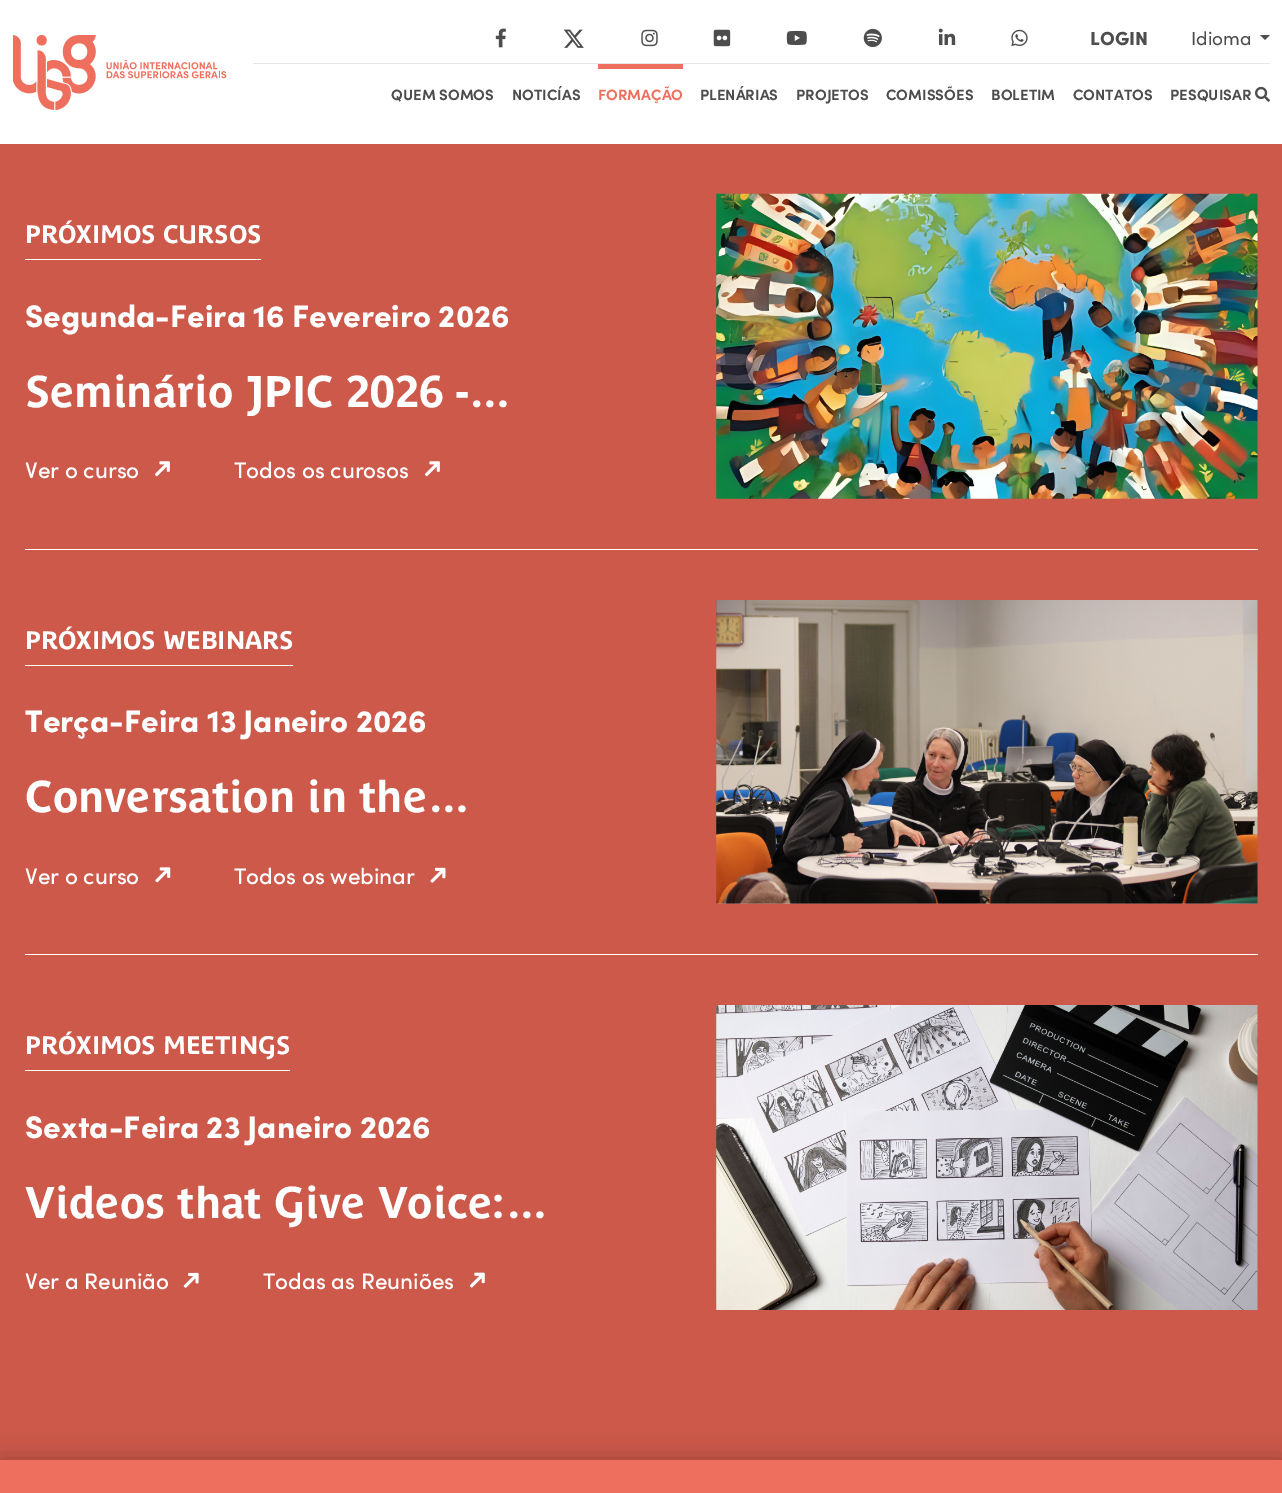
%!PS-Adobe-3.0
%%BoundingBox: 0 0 1282 1493
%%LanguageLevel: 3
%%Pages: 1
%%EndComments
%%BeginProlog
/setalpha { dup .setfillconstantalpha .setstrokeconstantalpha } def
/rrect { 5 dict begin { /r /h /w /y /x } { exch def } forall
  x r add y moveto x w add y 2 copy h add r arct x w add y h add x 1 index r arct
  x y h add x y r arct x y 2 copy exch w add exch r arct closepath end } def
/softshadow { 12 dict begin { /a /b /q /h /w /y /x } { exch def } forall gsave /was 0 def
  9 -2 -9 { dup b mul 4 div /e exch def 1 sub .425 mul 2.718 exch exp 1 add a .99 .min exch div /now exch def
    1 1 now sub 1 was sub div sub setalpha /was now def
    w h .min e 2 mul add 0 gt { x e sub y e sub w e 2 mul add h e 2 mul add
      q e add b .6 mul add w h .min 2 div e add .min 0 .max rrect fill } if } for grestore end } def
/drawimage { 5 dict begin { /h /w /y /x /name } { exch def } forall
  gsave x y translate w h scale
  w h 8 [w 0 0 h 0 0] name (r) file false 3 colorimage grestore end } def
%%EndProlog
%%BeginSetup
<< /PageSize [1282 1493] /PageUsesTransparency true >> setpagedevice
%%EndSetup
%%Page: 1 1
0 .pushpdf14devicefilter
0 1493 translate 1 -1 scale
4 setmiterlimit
1 setgray
0 0 1282 1493 rectfill
(images/1.raw) 13 35 214 75 drawimage
0.898 setgray
253 63 1017 1 rectfill
(images/2.raw) 495 28 11 20 drawimage
(images/3.raw) 563 29 21 19 drawimage
(images/4.raw) 641 29 17 18 drawimage
(images/5.raw) 713 29 18 18 drawimage
(images/6.raw) 786 30 21 15 drawimage
(images/7.raw) 863 28 19 20 drawimage
(images/8.raw) 938 28 18 17 drawimage
(images/9.raw) 1011 29 17 18 drawimage
0.302 setgray
newpath 1260 35 moveto 1270 35 lineto 1265 40 lineto closepath fill
0.933 0.435 0.369 setrgbcolor
598 64 85 5 rectfill
(images/10.raw) 1255 86 15 16 drawimage
0.8 0.349 0.29 setrgbcolor
0 144 1282 1316 rectfill
1 setgray
25 549 1233 1 rectfill
25 259 236 1 rectfill
(images/11.raw) 155 461 15 16 drawimage
(images/11.raw) 425 461 15 16 drawimage
(images/12.raw) 716 193 542 306 drawimage
25 954 1233 1 rectfill
25 665 268 1 rectfill
(images/13.raw) 155 867 16 16 drawimage
(images/14.raw) 430 867 16 16 drawimage
(images/15.raw) 716 600 542 304 drawimage
25 1070 265 1 rectfill
(images/16.raw) 183 1272 16 16 drawimage
(images/17.raw) 469 1272 16 16 drawimage
(images/18.raw) 716 1005 542 305 drawimage
0 setgray
0 1460 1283 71 0 12.5 0.25 softshadow
0.933 0.435 0.369 setrgbcolor
0 1460 1282 33 rectfill
/Sofia-Black [19 0 0 -19 0 0] selectfont
0.302 setgray
1090 45 moveto (LOGIN) show
/Sofia-Regular [19 0 0 -19 0 0] selectfont
1191 45 moveto (Idioma) show
/Sofia-Bold [15 0 0 -15 0 0] selectfont
391 100 moveto (QUEM SOMOS) show
512 100 moveto (NOTICÍAS) show
0.933 0.435 0.369 setrgbcolor
598 100 moveto (FORMAÇÃO) show
0.302 setgray
700 100 moveto (PLENÁRIAS) show
796 100 moveto (PROJETOS) show
886 100 moveto (COMISSÕES) show
991 100 moveto (BOLETIM) show
1073 100 moveto (CONTATOS) show
1170 100 moveto (PESQUISAR) show
/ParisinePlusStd-Bold [25 0 0 -25 0 0] selectfont
1 setgray
25 243 moveto (PRÓXIMOS CURSOS) show
/Sofia-Black [31.25 0 0 -31.25 0 0] selectfont
25 327 moveto (Segunda-Feira 16 Fevereiro 2026) show
gsave
25 366 541 50 rectclip
/ParisinePlusStd-Bold [43.75 0 0 -43.75 0 0] selectfont
25 407 moveto (Seminário JPIC 2026 -…) show
grestore
/Sofia-Medium [22.5 0 0 -22.5 0 0] selectfont
25 478 moveto (Ver o curso) show
234 478 moveto (Todos os curosos) show
/ParisinePlusStd-Bold [25 0 0 -25 0 0] selectfont
25 649 moveto (PRÓXIMOS WEBINARS) show
/Sofia-Black [31.25 0 0 -31.25 0 0] selectfont
25 732 moveto (Terça-Feira 13 Janeiro 2026) show
/ParisinePlusStd-Bold [43.75 0 0 -43.75 0 0] selectfont
25 812 moveto (Conversation in the…) show
/Sofia-Medium [22.5 0 0 -22.5 0 0] selectfont
25 884 moveto (Ver o curso) show
234 884 moveto (Todos os webinar) show
/ParisinePlusStd-Bold [25 0 0 -25 0 0] selectfont
25 1054 moveto (PRÓXIMOS MEETINGS) show
/Sofia-Black [31.25 0 0 -31.25 0 0] selectfont
25 1138 moveto (Sexta-Feira 23 Janeiro 2026) show
/ParisinePlusStd-Bold [43.75 0 0 -43.75 0 0] selectfont
25 1218 moveto (Videos that Give Voice:…) show
/Sofia-Medium [22.5 0 0 -22.5 0 0] selectfont
25 1289 moveto (Ver a Reunião) show
263 1289 moveto (Todas as Reuniões) show
.poppdf14devicefilter showpage
%%EOF
